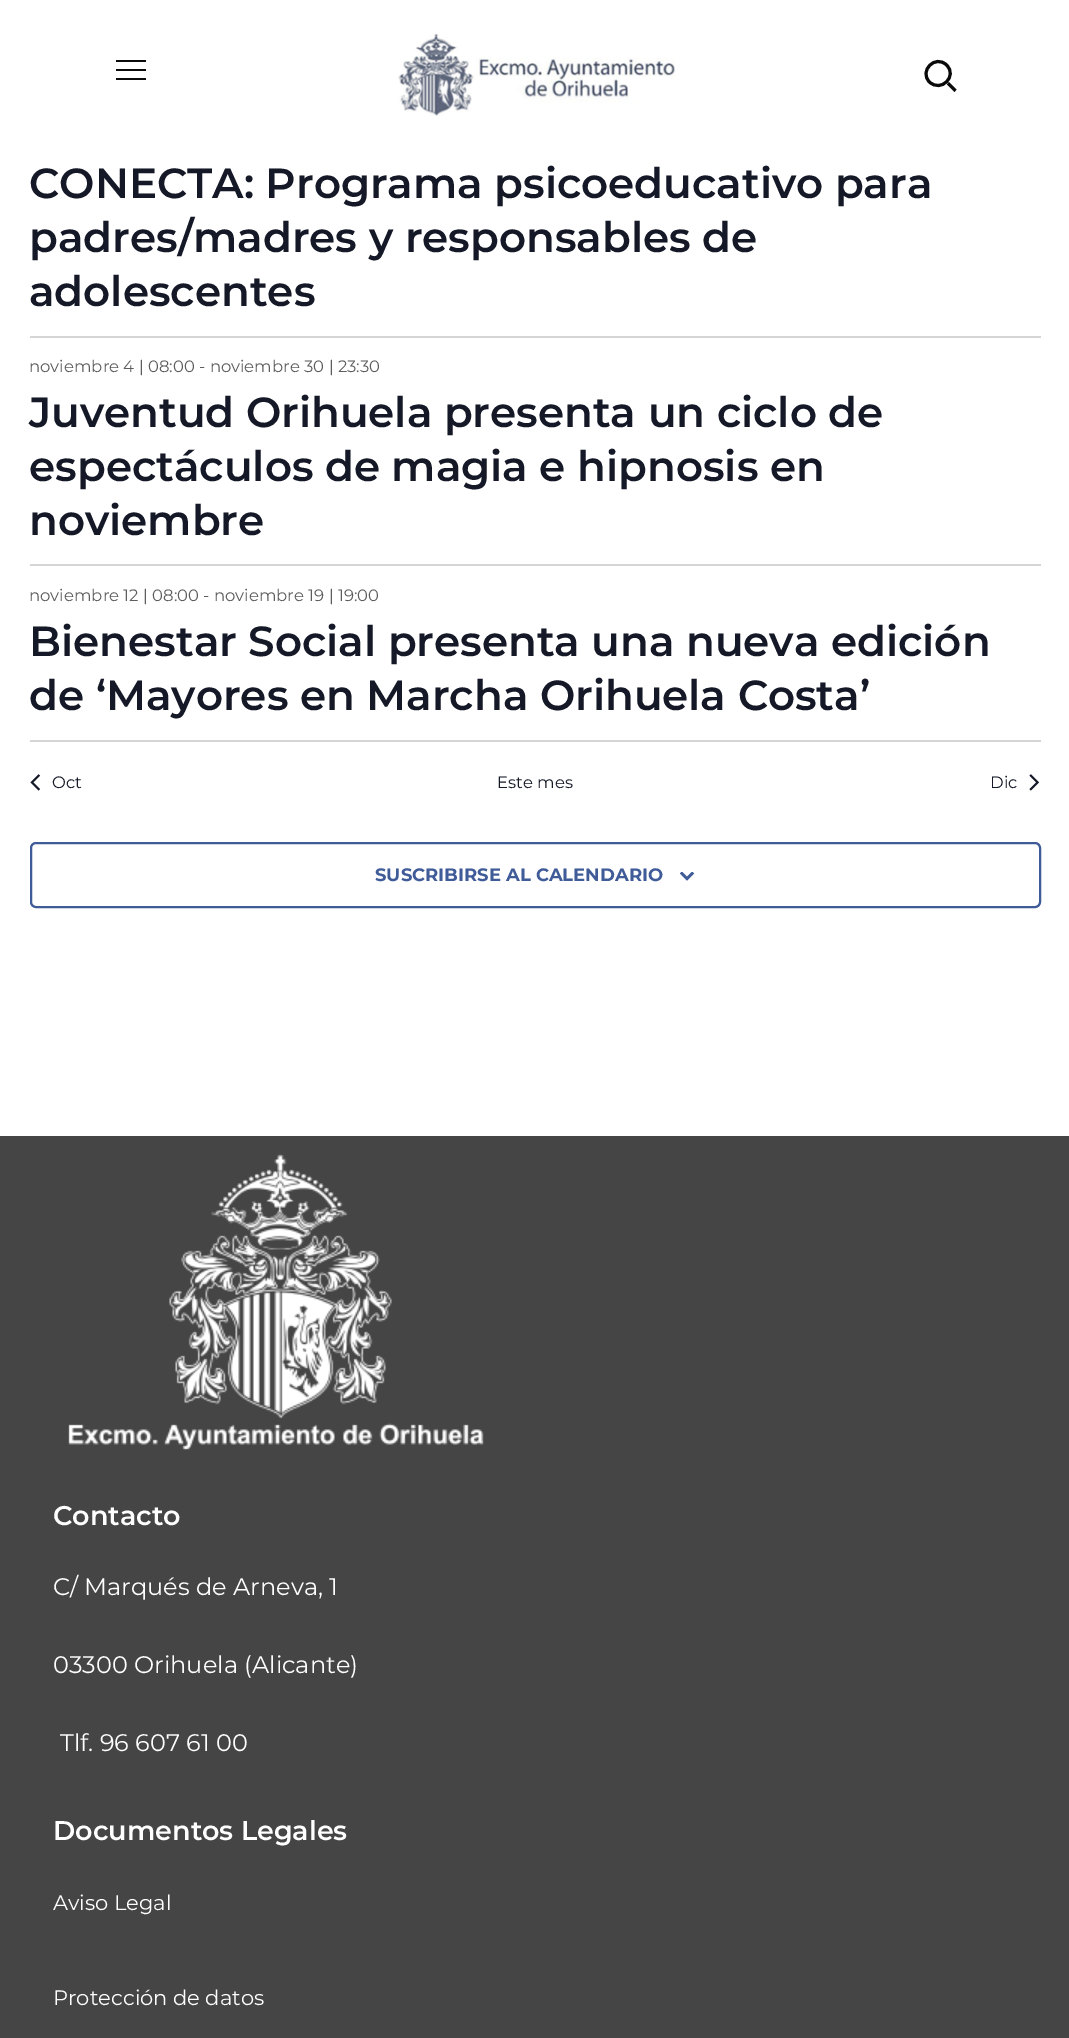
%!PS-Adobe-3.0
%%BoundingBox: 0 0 1069 2038
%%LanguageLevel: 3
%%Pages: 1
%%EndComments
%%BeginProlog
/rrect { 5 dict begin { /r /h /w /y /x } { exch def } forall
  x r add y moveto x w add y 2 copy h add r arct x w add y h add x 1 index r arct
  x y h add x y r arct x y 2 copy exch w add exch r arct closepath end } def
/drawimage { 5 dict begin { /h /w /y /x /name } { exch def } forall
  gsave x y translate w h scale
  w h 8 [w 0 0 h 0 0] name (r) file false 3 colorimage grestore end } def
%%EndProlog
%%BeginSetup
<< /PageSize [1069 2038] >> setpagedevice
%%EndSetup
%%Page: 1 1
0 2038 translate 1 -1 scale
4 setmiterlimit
1 setgray
0 0 1069 2038 rectfill
0.039 setgray
116 60 30 2 rectfill
116 69 30 2 rectfill
116 78 30 2 rectfill
(images/1.raw) 398 33 277 83 drawimage
3 setlinewidth
newpath 946.5 65 moveto 958 76 941 93 929.5 82 curveto 918.5 71 935.5 54 946.5 65 curveto closepath stroke
newpath 947 84.5 moveto 949 82 lineto 956.5 89.5 lineto 954.5 92 lineto closepath fill
0.835 setgray
30 336 1011 2 rectfill
30 564 1011 2 rectfill
30 740 1011 2 rectfill
(images/2.raw) 30 774 11 17 drawimage
(images/3.raw) 1029 774 11 17 drawimage
0.247 0.361 0.6 setrgbcolor
2 setlinewidth
31 843 1009 64 5 rrect stroke
(images/4.raw) 680 872 15 9 drawimage
0.271 setgray
0 1136 1069 902 rectfill
(images/5.raw) 68 1154 416 296 drawimage
/Montserrat-SemiBold [42 0 0 -42 0 0] selectfont
0.078 0.094 0.153 setrgbcolor
29 198 moveto (CONECTA: Programa psicoeducativo para) show
29 252 moveto (padres/madres y responsables de) show
29 306 moveto (adolescentes) show
/Montserrat-Regular [16.5 0 0 -16.5 0 0] selectfont
0.365 setgray
29 372 moveto (noviembre 4 | 08:00 - noviembre 30 | 23:30) show
/Montserrat-SemiBold [42 0 0 -42 0 0] selectfont
0.078 0.094 0.153 setrgbcolor
29 427 moveto (Juventud Orihuela presenta un ciclo de) show
29 481 moveto (espectáculos de magia e hipnosis en) show
29 535 moveto (noviembre) show
/Montserrat-Regular [16.5 0 0 -16.5 0 0] selectfont
0.365 setgray
29 601 moveto (noviembre 12 | 08:00 - noviembre 19 | 19:00) show
/Montserrat-SemiBold [42 0 0 -42 0 0] selectfont
0.078 0.094 0.153 setrgbcolor
29 656 moveto (Bienestar Social presenta una nueva edición) show
29 710 moveto (de ‘Mayores en Marcha Orihuela Costa’) show
/Montserrat-Regular [16.5 0 0 -16.5 0 0] selectfont
52 788 moveto (Oct) show
497 788 moveto (Este mes) show
990 788 moveto (Dic) show
/Montserrat-Bold [18 0 0 -18 0 0] selectfont
0.247 0.361 0.6 setrgbcolor
375 881 moveto (SUSCRIBIRSE AL CALENDARIO) show
/Montserrat-SemiBold [27 0 0 -27 0 0] selectfont
1 setgray
53 1525 moveto (Contacto) show
/Montserrat-Regular [24 0 0 -24 0 0] selectfont
53 1595 moveto (C/ Marqués de Arneva, 1) show
53 1673 moveto (03300 Orihuela \(Alicante\)) show
60 1751 moveto (Tlf. 96 607 61 00) show
/Montserrat-SemiBold [27 0 0 -27 0 0] selectfont
53 1840 moveto (Documentos Legales) show
/Montserrat-Regular [21 0 0 -21 0 0] selectfont
53 1910 moveto (Aviso Legal) show
53 2005 moveto (Protección de datos) show
showpage
%%EOF
